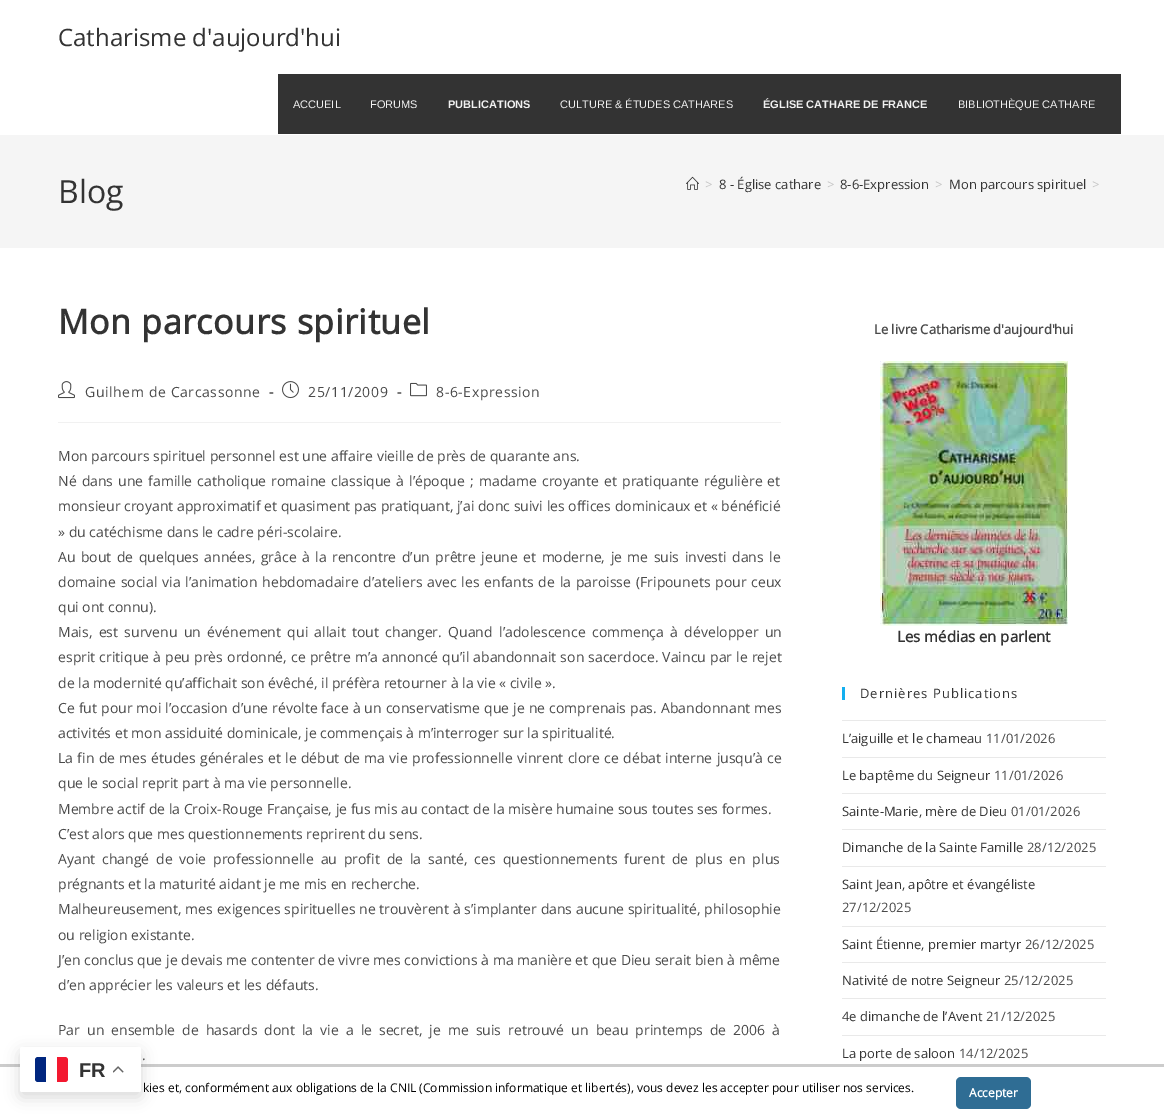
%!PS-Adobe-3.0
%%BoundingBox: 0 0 1164 1119
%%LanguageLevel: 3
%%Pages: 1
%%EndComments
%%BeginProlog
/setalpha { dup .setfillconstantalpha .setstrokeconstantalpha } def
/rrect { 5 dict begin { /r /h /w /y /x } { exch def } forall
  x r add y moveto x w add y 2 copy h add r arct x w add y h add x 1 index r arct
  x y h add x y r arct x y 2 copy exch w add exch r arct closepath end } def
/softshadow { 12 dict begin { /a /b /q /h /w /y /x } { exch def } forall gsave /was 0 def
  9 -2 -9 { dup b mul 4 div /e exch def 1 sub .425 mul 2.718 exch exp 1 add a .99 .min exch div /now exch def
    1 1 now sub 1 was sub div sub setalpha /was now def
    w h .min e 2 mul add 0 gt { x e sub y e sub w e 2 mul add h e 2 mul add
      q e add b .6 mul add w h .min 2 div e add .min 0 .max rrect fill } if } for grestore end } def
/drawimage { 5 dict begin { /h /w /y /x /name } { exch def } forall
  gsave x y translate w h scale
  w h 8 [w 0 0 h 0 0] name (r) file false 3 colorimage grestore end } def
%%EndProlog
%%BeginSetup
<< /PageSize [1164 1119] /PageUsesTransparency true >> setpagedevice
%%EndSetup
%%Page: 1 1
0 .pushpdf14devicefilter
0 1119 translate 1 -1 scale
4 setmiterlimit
1 setgray
0 0 1164 1119 rectfill
0.2 setgray
278 74 843 60 rectfill
0.961 setgray
0 135 1164 113 rectfill
(images/1.raw) 686 176 13 14 drawimage
0.945 setgray
58 422 723 1 rectfill
(images/2.raw) 58 381 17 18 drawimage
(images/3.raw) 282 381 17 18 drawimage
(images/4.raw) 410 382 17 15 drawimage
(images/5.raw) 880 361 188 265 drawimage
0.075 0.686 0.941 setrgbcolor
842 687 3 13 rectfill
0.914 setgray
842 720 264 1 rectfill
842 757 264 1 rectfill
842 793 264 1 rectfill
842 829 264 1 rectfill
842 866 264 1 rectfill
842 926 264 1 rectfill
842 962 264 1 rectfill
842 998 264 1 rectfill
842 1035 264 1 rectfill
0.8 setgray
0 1064 1164 3 rectfill
0 setgray
20 1052 121 45 2 7.5 0.15 softshadow
1 setgray
20 1047 121 45 2 rrect fill
0 0.149 0.498 setrgbcolor
newpath 38 1057 moveto 46 1057 lineto 46 1082 lineto 38 1082 lineto 36.5 1082 35 1080.5 35 1079 curveto 35 1060 lineto 35 1058.5 36.5 1057 38 1057 curveto closepath fill
0.953 0.094 0.188 setrgbcolor
newpath 57 1057 moveto 65 1057 lineto 66.5 1057 68 1058.5 68 1060 curveto 68 1079 lineto 68 1080.5 66.5 1082 65 1082 curveto 57 1082 lineto closepath fill
(images/6.raw) 113 1066 11 7 drawimage
0.184 0.427 0.58 setrgbcolor
956 1077 75 32 5 rrect fill
/OpenSans-Regular [24 0 0 -24 0 0] selectfont
0.2 setgray
58 46 moveto (Catharisme d'aujourd'hui) show
/LiberationSans-Regular [11 0 0 -11 0 0] selectfont
0.945 setgray
293 108 moveto (ACCUEIL) show
370 108 moveto (FORUMS) show
/LiberationSans-Bold [11 0 0 -11 0 0] selectfont
448 108 moveto (PUBLICATIONS) show
/LiberationSans-Regular [11 0 0 -11 0 0] selectfont
560 108 moveto (CULTURE & ÉTUDES CATHARES) show
/LiberationSans-Bold [11 0 0 -11 0 0] selectfont
763 108 moveto (ÉGLISE CATHARE DE FRANCE) show
/LiberationSans-Regular [11 0 0 -11 0 0] selectfont
958 108 moveto (BIBLIOTHÈQUE CATHARE) show
/OpenSans-Regular [32 0 0 -32 0 0] selectfont
0.2 setgray
58 203 moveto (Blog) show
/OpenSans-Regular [13 0 0 -13 0 0] selectfont
0.776 setgray
705 189 moveto (>) show
0.2 setgray
719 189 moveto (8 - Église cathare) show
0.776 setgray
827 189 moveto (>) show
0.2 setgray
840 189 moveto (8-6-Expression) show
0.776 setgray
935 189 moveto (>) show
0.2 setgray
949 189 moveto (Mon parcours spirituel) show
0.776 setgray
1092 189 moveto (>) show
/OpenSans-Bold [34 0 0 -34 0 0] selectfont
0.2 setgray
58 334 moveto 0.6 0 (Mon parcours spirituel) ashow
/OpenSans-Regular [14 0 0 -14 0 0] selectfont
0.29 setgray
85 397 moveto 0.6 0 (Guilhem de Carcassonne) ashow
/OpenSans-Bold [14 0 0 -14 0 0] selectfont
269 397 moveto 0.6 0 (-) ashow
/OpenSans-Regular [14 0 0 -14 0 0] selectfont
308 397 moveto 0.6 0 (25/11/2009) ashow
/OpenSans-Bold [14 0 0 -14 0 0] selectfont
397 397 moveto 0.6 0 (-) ashow
/OpenSans-Regular [14 0 0 -14 0 0] selectfont
436 397 moveto 0.6 0 (8-6-Expression) ashow
58 461 moveto (Mon parcours spirituel personnel est une affaire vieille de près de quarante ans.) show
58 486 moveto 1.5 0 32 (Né dans une famille catholique romaine classique à l’époque ; madame croyante et pratiquante régulière et) widthshow
58 511 moveto (monsieur croyant approximatif et quasiment pas pratiquant, j’ai donc suivi les offices dominicaux et « bénéficié) show
58 537 moveto (» du catéchisme dans le cadre péri-scolaire.) show
58 562 moveto 1.8 0 32 (Au bout de quelques années, grâce à la rencontre d’un prêtre jeune et moderne, je me suis investi dans le) widthshow
58 587 moveto 1.25 0 32 (domaine social via l’animation hebdomadaire d’ateliers avec les enfants de la paroisse \(Fripounets pour ceux) widthshow
58 612 moveto (qui ont connu\).) show
58 637 moveto 2.75 0 32 (Mais, est survenu un événement qui allait tout changer. Quand l’adolescence commença à développer un) widthshow
58 662 moveto 0.5 0 32 (esprit critique à peu près ordonné, ce prêtre m’a annoncé qu’il abandonnait son sacerdoce. Vaincu par le rejet) widthshow
58 688 moveto (de la modernité qu’affichait son évêché, il préfèra retourner à la vie « civile ».) show
58 713 moveto 0.4 0 32 (Ce fut pour moi l’occasion d’une révolte face à un conservatisme que je ne comprenais pas. Abandonnant mes) widthshow
58 738 moveto (activités et mon assiduité dominicale, je commençais à m’interroger sur la spiritualité.) show
58 763 moveto 0.7 0 32 (La fin de mes études générales et le début de ma vie professionnelle vinrent clore ce débat interne jusqu’à ce) widthshow
58 788 moveto (que le social reprit part à ma vie personnelle.) show
58 814 moveto (Membre actif de la Croix-Rouge Française, je fus mis au contact de la misère humaine sous toutes ses formes.) show
58 839 moveto (C’est alors que mes questionnements reprirent du sens.) show
58 864 moveto 3.25 0 32 (Ayant changé de voie professionnelle au profit de la santé, ces questionnements furent de plus en plus) widthshow
58 889 moveto (prégnants et la maturité aidant je me mis en recherche.) show
58 914 moveto 0.1 0 32 (Malheureusement, mes exigences spirituelles ne trouvèrent à s’implanter dans aucune spiritualité, philosophie) widthshow
58 940 moveto (ou religion existante.) show
58 965 moveto 0.1 0 32 (J’en conclus que je devais me contenter de vivre mes convictions à ma manière et que Dieu serait bien à même) widthshow
58 990 moveto (d’en apprécier les valeurs et les défauts.) show
58 1035 moveto 3.4 0 32 (Par un ensemble de hasards dont la vie a le secret, je me suis retrouvé un beau printemps de 2006 à) widthshow
142 1060 moveto (.) show
/OpenSans-Bold [13 0 0 -13 0 0] selectfont
874 334 moveto (Le livre Catharisme d'aujourd'hui) show
/OpenSans-Bold [15 0 0 -15 0 0] selectfont
0.2 setgray
897 642 moveto (Les médias en parlent) show
/OpenSans-Regular [13 0 0 -13 0 0] selectfont
860 698 moveto 1 0 (Dernières Publications) ashow
842 743 moveto (L’aiguille et le chameau) show
0.29 setgray
986 743 moveto (11/01/2026) show
0.2 setgray
842 780 moveto (Le baptême du Seigneur) show
0.29 setgray
994 780 moveto (11/01/2026) show
0.2 setgray
842 816 moveto (Sainte-Marie, mère de Dieu) show
0.29 setgray
1011 816 moveto (01/01/2026) show
0.2 setgray
842 852 moveto (Dimanche de la Sainte Famille) show
0.29 setgray
1027 852 moveto (28/12/2025) show
0.2 setgray
842 889 moveto (Saint Jean, apôtre et évangéliste) show
0.29 setgray
842 912 moveto (27/12/2025) show
0.2 setgray
842 949 moveto (Saint Étienne, premier martyr) show
0.29 setgray
1025 949 moveto (26/12/2025) show
0.2 setgray
842 985 moveto (Nativité de notre Seigneur) show
0.29 setgray
1004 985 moveto (25/12/2025) show
0.2 setgray
842 1021 moveto (4e dimanche de l’Avent) show
0.29 setgray
986 1021 moveto (21/12/2025) show
0.2 setgray
842 1058 moveto (La porte de saloon) show
0.29 setgray
959 1058 moveto (14/12/2025) show
/LiberationSans-Bold [20 0 0 -20 0 0] selectfont
0.2 setgray
79 1077 moveto (FR) show
/OpenSans-Regular [12 0 0 -12 0 0] selectfont
0 setgray
143 1092 moveto (kies et, conformément aux obligations de la CNIL \(Commission informatique et libertés\), vous devez les accepter pour utiliser nos services.) show
/OpenSans-Bold [12 0 0 -12 0 0] selectfont
1 setgray
969 1097 moveto (Accepter) show
.poppdf14devicefilter showpage
%%EOF
